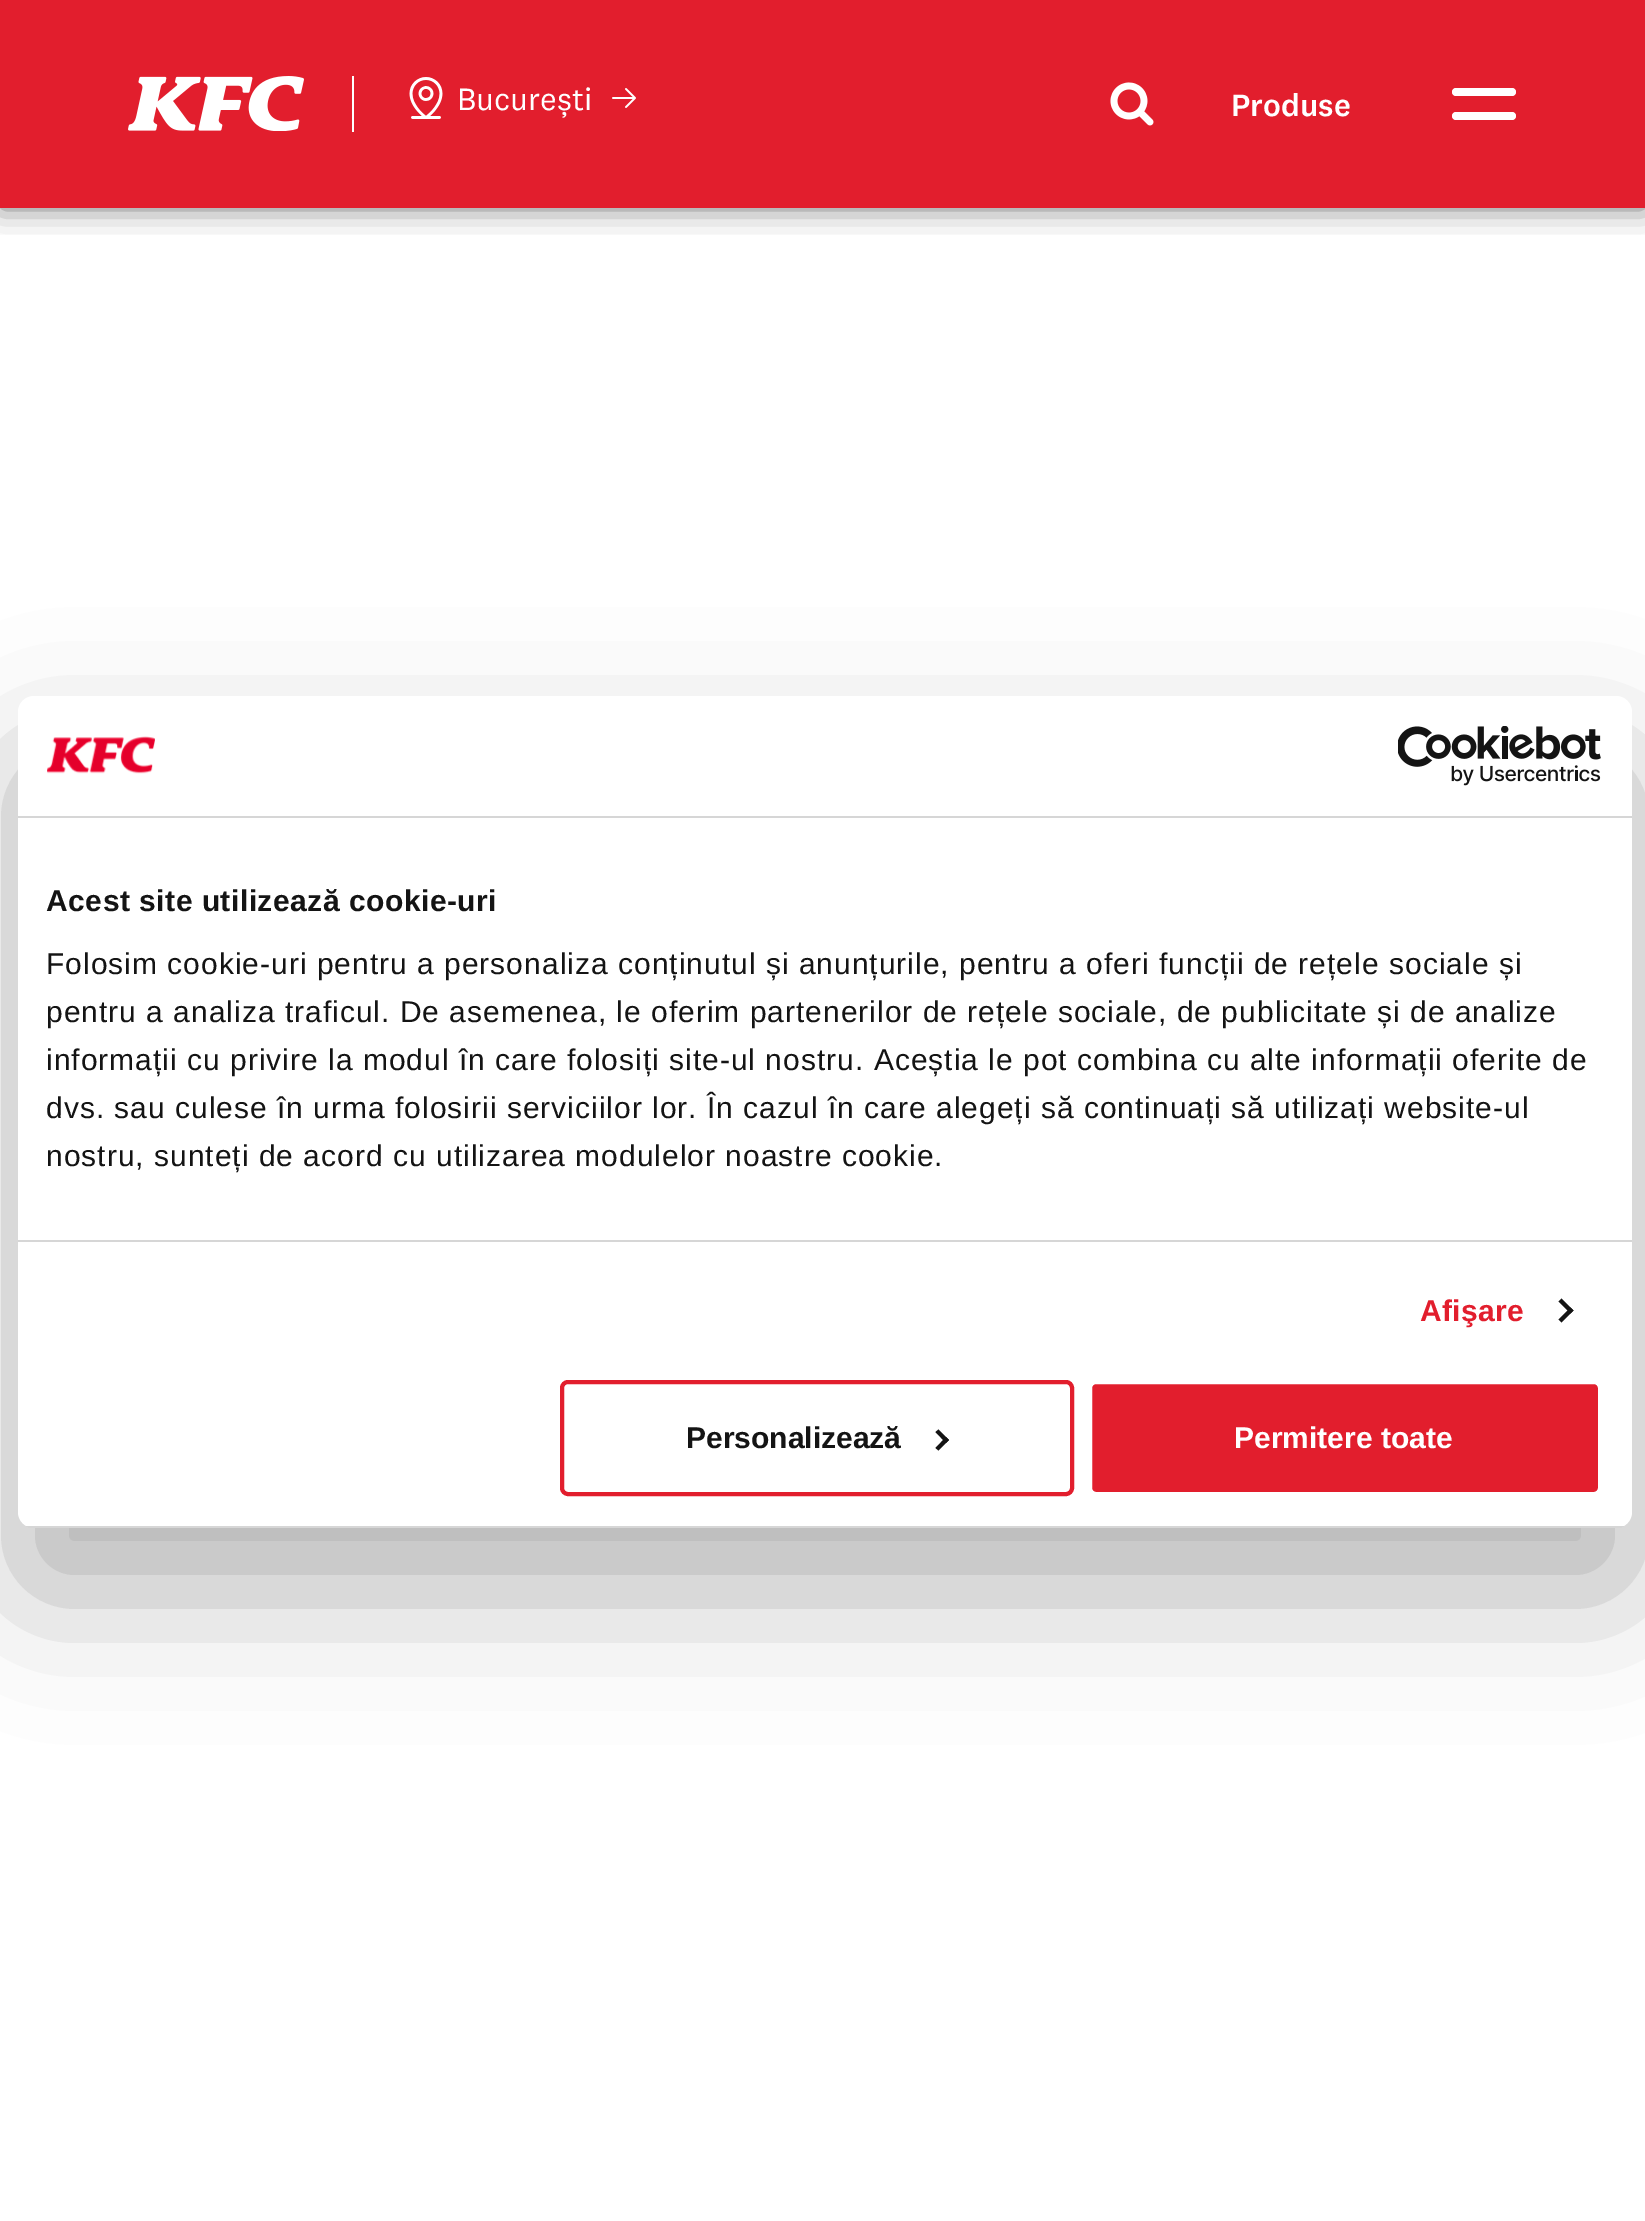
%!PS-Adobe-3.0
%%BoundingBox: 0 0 1645 2221
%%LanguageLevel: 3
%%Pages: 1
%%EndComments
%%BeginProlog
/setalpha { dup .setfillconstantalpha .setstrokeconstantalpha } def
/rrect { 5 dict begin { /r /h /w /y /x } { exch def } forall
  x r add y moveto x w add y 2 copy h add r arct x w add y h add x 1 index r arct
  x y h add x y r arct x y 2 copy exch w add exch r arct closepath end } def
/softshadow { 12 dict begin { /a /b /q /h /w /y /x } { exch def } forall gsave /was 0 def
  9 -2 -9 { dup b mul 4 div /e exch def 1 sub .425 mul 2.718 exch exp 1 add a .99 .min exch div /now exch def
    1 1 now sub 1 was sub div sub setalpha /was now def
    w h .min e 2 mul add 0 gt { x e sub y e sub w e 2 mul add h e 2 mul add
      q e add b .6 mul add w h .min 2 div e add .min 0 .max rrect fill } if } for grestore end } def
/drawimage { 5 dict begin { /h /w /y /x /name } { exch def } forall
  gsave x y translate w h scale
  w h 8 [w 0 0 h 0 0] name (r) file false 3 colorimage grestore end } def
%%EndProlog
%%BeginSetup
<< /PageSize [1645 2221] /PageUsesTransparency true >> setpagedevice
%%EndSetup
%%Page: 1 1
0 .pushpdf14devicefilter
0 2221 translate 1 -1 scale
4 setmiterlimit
1 setgray
0 0 1645 2221 rectfill
0.886 0.118 0.176 setrgbcolor
0 0 1645 208 rectfill
gsave
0 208 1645 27 rectclip
0 setgray
0 0 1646 208 0 15 0.55 softshadow
grestore
(images/1.raw) 128 76 176 55 drawimage
1 setgray
352 76 2 56 rectfill
(images/2.raw) 409 77 34 42 drawimage
(images/3.raw) 612 88 24 20 drawimage
(images/4.raw) 1110 82 44 44 drawimage
1452 88 64 8 4 rrect fill
1452 112 64 8 4 rrect fill
0 setgray
18 760 1614 832 16 68 0.3 softshadow
1 setgray
18 696 1614 832 16 rrect fill
0.839 setgray
18 816 1614 2 rectfill
(images/5.raw) 47 736 108 38 drawimage
(images/6.raw) 1398 726 203 60 drawimage
18 1240 1614 2 rectfill
0.078 setgray
newpath 1561.5 1298.5 moveto 1573.5 1310.5 lineto 1570.5 1313.5 lineto 1558.5 1301.5 lineto closepath fill
newpath 1570.5 1307.5 moveto 1573.5 1310.5 lineto 1561.5 1322.5 lineto 1558.5 1319.5 lineto closepath fill
gsave
18 696 1614 832 16 rrect clip newpath
0.839 setgray
18 1526 1614 2 rectfill
grestore
0.886 0.118 0.176 setrgbcolor
4 setlinewidth
562 1382 510 112 6 rrect stroke
0.078 setgray
newpath 938.5 1429.5 moveto 949 1440 lineto 946 1443 lineto 935.5 1432 lineto closepath fill
newpath 946 1437 moveto 949 1440 lineto 938.5 1450.5 lineto 935.5 1448 lineto closepath fill
0.886 0.118 0.176 setrgbcolor
1090 1382 510 112 6 rrect gsave fill grestore
1 setgray
stroke
/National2-Regular [32 0 0 -32 0 0] selectfont
457 110 moveto (București) show
/National2-Medium [32 0 0 -32 0 0] selectfont
1231 116 moveto (Produse) show
/LiberationSans-Bold [30 0 0 -30 0 0] selectfont
0.078 setgray
46 911 moveto 0.5 0 (Acest site utilizează cookie-uri) ashow
/LiberationSans-Regular [30 0 0 -30 0 0] selectfont
46 974 moveto 1 0 (Folosim cookie-uri pentru a personaliza conținutul și anunțurile, pentru a oferi funcții de rețele sociale și) ashow
46 1022 moveto 1 0 (pentru a analiza traficul. De asemenea, le oferim partenerilor de rețele sociale, de publicitate și de analize) ashow
46 1070 moveto 1 0 (informații cu privire la modul în care folosiți site-ul nostru. Aceștia le pot combina cu alte informații oferite de) ashow
46 1118 moveto 1 0 (dvs. sau culese în urma folosirii serviciilor lor. În cazul în care alegeți să continuați să utilizați website-ul) ashow
46 1166 moveto 1 0 (nostru, sunteți de acord cu utilizarea modulelor noastre cookie.) ashow
/LiberationSans-Bold [30 0 0 -30 0 0] selectfont
0.886 0.118 0.176 setrgbcolor
1420 1321 moveto 0.25 0 (Afişare) ashow
0.078 setgray
686 1448 moveto (Personalizează) show
1 setgray
1234 1448 moveto (Permitere toate) show
.poppdf14devicefilter showpage
%%EOF
